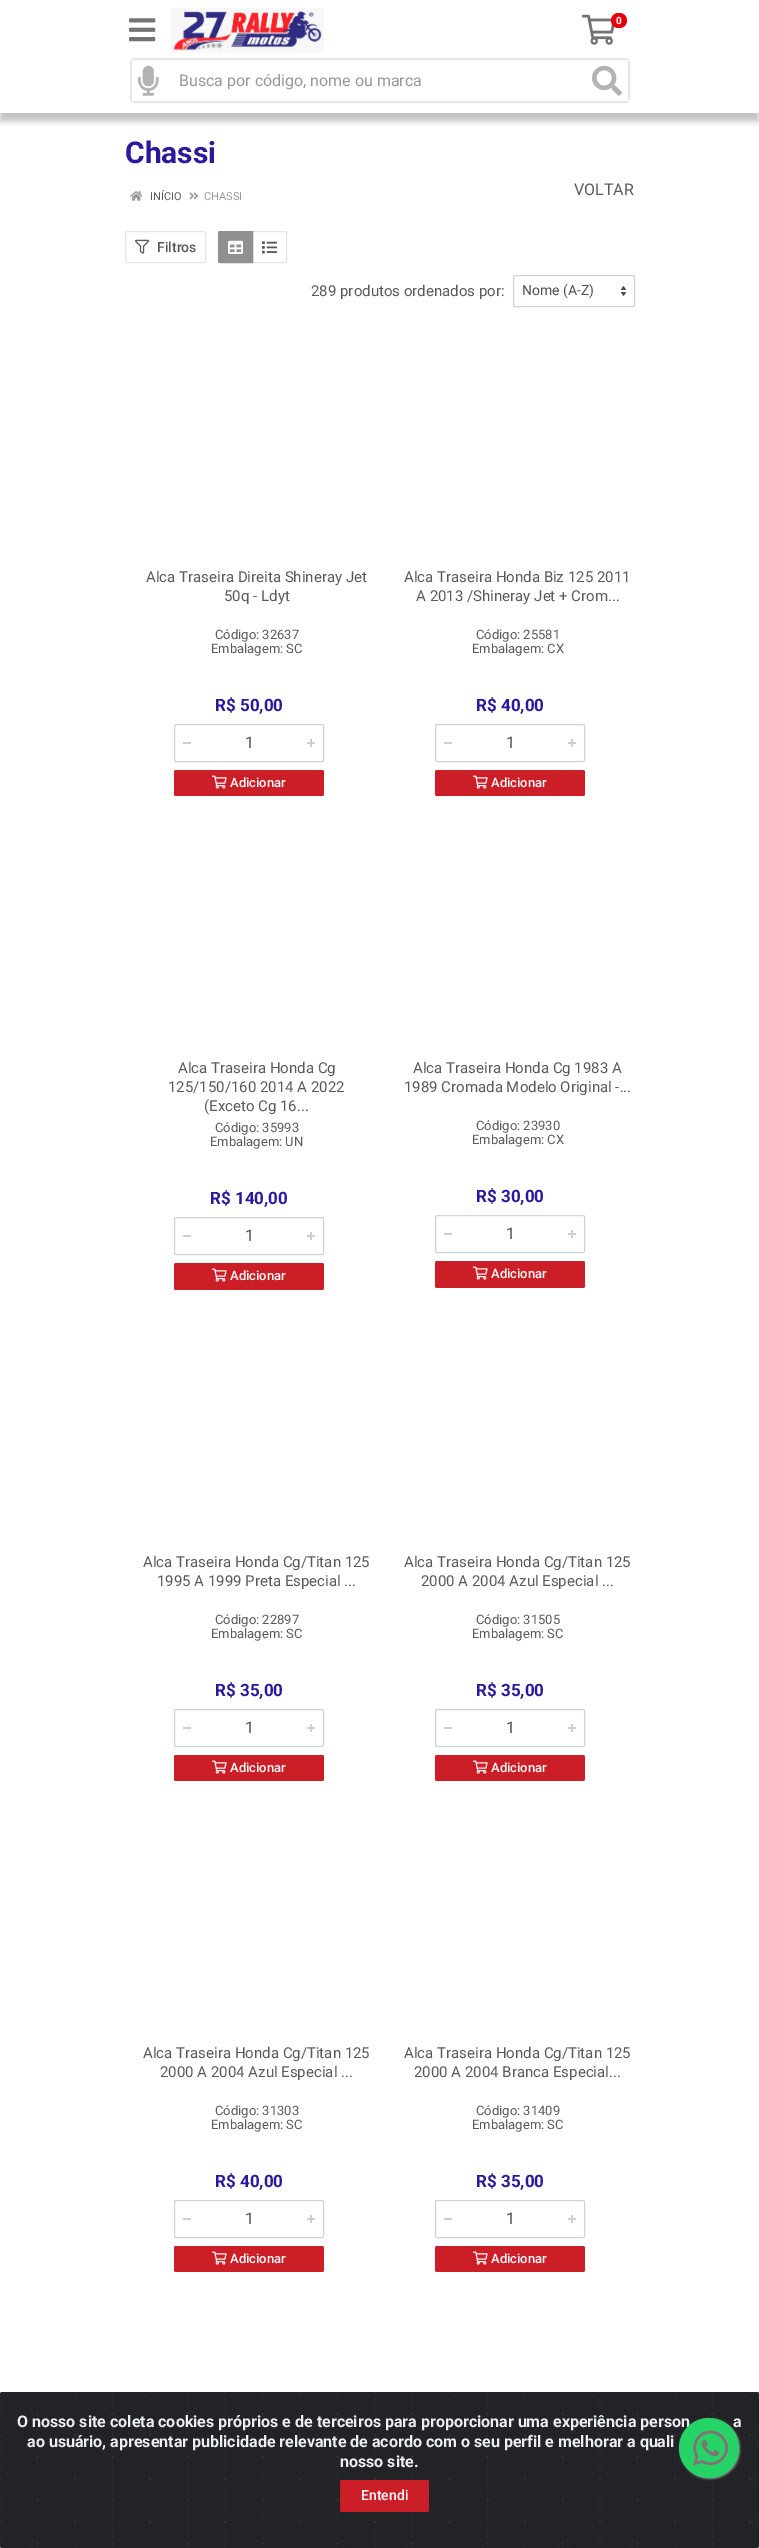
%!PS-Adobe-3.0
%%BoundingBox: 0 0 759 2548
%%LanguageLevel: 3
%%Pages: 1
%%EndComments
%%BeginProlog
/setalpha { dup .setfillconstantalpha .setstrokeconstantalpha } def
/rrect { 5 dict begin { /r /h /w /y /x } { exch def } forall
  x r add y moveto x w add y 2 copy h add r arct x w add y h add x 1 index r arct
  x y h add x y r arct x y 2 copy exch w add exch r arct closepath end } def
/softshadow { 12 dict begin { /a /b /q /h /w /y /x } { exch def } forall gsave /was 0 def
  9 -2 -9 { dup b mul 4 div /e exch def 1 sub .425 mul 2.718 exch exp 1 add a .99 .min exch div /now exch def
    1 1 now sub 1 was sub div sub setalpha /was now def
    w h .min e 2 mul add 0 gt { x e sub y e sub w e 2 mul add h e 2 mul add
      q e add b .6 mul add w h .min 2 div e add .min 0 .max rrect fill } if } for grestore end } def
/drawimage { 5 dict begin { /h /w /y /x /name } { exch def } forall
  gsave x y translate w h scale
  w h 8 [w 0 0 h 0 0] name (r) file false 3 colorimage grestore end } def
%%EndProlog
%%BeginSetup
<< /PageSize [759 2548] /PageUsesTransparency true >> setpagedevice
%%EndSetup
%%Page: 1 1
0 .pushpdf14devicefilter
0 2548 translate 1 -1 scale
4 setmiterlimit
1 setgray
0 0 759 2548 rectfill
(images/1.raw) 129 18 27 24 drawimage
(images/2.raw) 171 8 153 45 drawimage
(images/3.raw) 582 14 33 31 drawimage
0.89 0.012 0.043 setrgbcolor
611 13 16 15 7.5 rrect fill
gsave
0 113 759 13 rectclip
0 setgray
0 66 759 55 0 3.5 0.25 softshadow
grestore
0.898 setgray
2 setlinewidth
131 59 498 43 4 rrect stroke
1 setgray
132 60 3 41 rectfill
(images/4.raw) 138 65 21 31 drawimage
625 60 3 41 rectfill
(images/5.raw) 592 65 30 31 drawimage
(images/6.raw) 130 191 13 10 drawimage
(images/7.raw) 189 192 9 8 drawimage
0.898 setgray
1 setlinewidth
125.5 231.5 80 31 1.5 rrect stroke
(images/8.raw) 135 239 14 15 drawimage
newpath 252.5 231.5 moveto 285 231.5 lineto 286 231.5 286.5 232 286.5 233 curveto 286.5 261 lineto 286.5 262 286 262.5 285 262.5 curveto 252.5 262.5 lineto closepath stroke
0.565 setgray
newpath 220 231.5 moveto 252.5 231.5 lineto 252.5 262.5 lineto 220 262.5 lineto 219 262.5 218.5 262 218.5 261 curveto 218.5 233 lineto 218.5 232 219 231.5 220 231.5 curveto closepath gsave fill grestore
stroke
(images/9.raw) 228 240 15 14 drawimage
(images/10.raw) 262 241 15 13 drawimage
(images/11.raw) 621 286 5 10 drawimage
0.808 0.831 0.855 setrgbcolor
513.5 275.5 121 31 1.5 rrect stroke
174.5 724.5 149 37 1.5 rrect stroke
0.808 setgray
183 742 8 2 rectfill
307 742 8 2 rectfill
310 739 2 8 rectfill
0.796 0.118 0.149 setrgbcolor
174 770 150 26 2 rrect fill
(images/12.raw) 212 775 15 14 drawimage
0.808 0.831 0.855 setrgbcolor
435.5 724.5 149 37 1.5 rrect stroke
0.808 setgray
444 742 8 2 rectfill
568 742 8 2 rectfill
571 739 2 8 rectfill
0.796 0.118 0.149 setrgbcolor
435 770 150 26 2 rrect fill
(images/12.raw) 473 775 15 14 drawimage
0.808 0.831 0.855 setrgbcolor
174.5 1217.5 149 37 1.5 rrect stroke
0.808 setgray
183 1235 8 2 rectfill
307 1235 8 2 rectfill
310 1232 2 8 rectfill
0.796 0.118 0.149 setrgbcolor
174 1263 150 27 2 rrect fill
(images/12.raw) 212 1268 15 14 drawimage
0.808 0.831 0.855 setrgbcolor
435.5 1215.5 149 37 1.5 rrect stroke
0.808 setgray
444 1233 8 2 rectfill
568 1233 8 2 rectfill
571 1230 2 8 rectfill
0.796 0.118 0.149 setrgbcolor
435 1261 150 27 2 rrect fill
(images/12.raw) 473 1266 15 14 drawimage
0.808 0.831 0.855 setrgbcolor
174.5 1709.5 149 37 1.5 rrect stroke
0.808 setgray
183 1727 8 2 rectfill
307 1727 8 2 rectfill
310 1724 2 8 rectfill
0.796 0.118 0.149 setrgbcolor
174 1755 150 26 2 rrect fill
(images/12.raw) 212 1760 15 14 drawimage
0.808 0.831 0.855 setrgbcolor
435.5 1709.5 149 37 1.5 rrect stroke
0.808 setgray
444 1727 8 2 rectfill
568 1727 8 2 rectfill
571 1724 2 8 rectfill
0.796 0.118 0.149 setrgbcolor
435 1755 150 26 2 rrect fill
(images/12.raw) 473 1760 15 14 drawimage
0.808 0.831 0.855 setrgbcolor
174.5 2200.5 149 37 1.5 rrect stroke
0.808 setgray
183 2218 8 2 rectfill
307 2218 8 2 rectfill
310 2215 2 8 rectfill
0.796 0.118 0.149 setrgbcolor
174 2246 150 26 2 rrect fill
(images/12.raw) 212 2251 15 14 drawimage
0.808 0.831 0.855 setrgbcolor
435.5 2200.5 149 37 1.5 rrect stroke
0.808 setgray
444 2218 8 2 rectfill
568 2218 8 2 rectfill
571 2215 2 8 rectfill
0.796 0.118 0.149 setrgbcolor
435 2246 150 26 2 rrect fill
(images/12.raw) 473 2251 15 14 drawimage
(images/13.raw) 0 2392 759 156 drawimage
340 2480 89 32 2 rrect fill
0.533 setgray
680 2419 60 60 30 1 1 softshadow
/Roboto-Bold [10 0 0 -10 0 0] selectfont
1 setgray
616 24 moveto (0) show
/Roboto-Regular [16 0 0 -16 0 0] selectfont
0.6 setgray
179 86 moveto (Busca por código, nome ou marca) show
/Roboto-Bold [30 0 0 -30 0 0] selectfont
0.161 0.098 0.616 setrgbcolor
125 163 moveto (Chassi) show
/Roboto-Regular [11 0 0 -11 0 0] selectfont
0.353 setgray
150 200 moveto (INÍCIO) show
0.6 setgray
204 200 moveto (CHASSI) show
/Roboto-Regular [16 0 0 -16 0 0] selectfont
0.353 setgray
574 195 moveto (VOLTAR) show
/Roboto-Medium [14 0 0 -14 0 0] selectfont
157 252 moveto (Filtros) show
/Roboto-Regular [15 0 0 -15 0 0] selectfont
311 296 moveto (289 produtos ordenados por:) show
/Roboto-Regular [14 0 0 -14 0 0] selectfont
0.286 0.314 0.341 setrgbcolor
522 295 moveto (Nome \(A-Z\)) show
/Roboto-Regular [15 0 0 -15 0 0] selectfont
0.353 setgray
146 582 moveto (Alca Traseira Direita Shineray Jet) show
224 601 moveto (50q - Ldyt) show
/Roboto-Regular [13 0 0 -13 0 0] selectfont
215 639 moveto (Código: 32637) show
211 653 moveto (Embalagem: SC) show
/Roboto-Bold [17 0 0 -17 0 0] selectfont
0.161 0.098 0.616 setrgbcolor
215 711 moveto (R$ 50,00) show
/Roboto-Regular [16 0 0 -16 0 0] selectfont
0.286 0.314 0.341 setrgbcolor
245 748 moveto (1) show
/Roboto-Medium [13 0 0 -13 0 0] selectfont
1 setgray
230 787 moveto (Adicionar) show
/Roboto-Regular [15 0 0 -15 0 0] selectfont
0.353 setgray
404 582 moveto (Alca Traseira Honda Biz 125 2011) show
416 601 moveto (A 2013 /Shineray Jet + Crom...) show
/Roboto-Regular [13 0 0 -13 0 0] selectfont
476 639 moveto (Código: 25581) show
472 653 moveto (Embalagem: CX) show
/Roboto-Bold [17 0 0 -17 0 0] selectfont
0.161 0.098 0.616 setrgbcolor
476 711 moveto (R$ 40,00) show
/Roboto-Regular [16 0 0 -16 0 0] selectfont
0.286 0.314 0.341 setrgbcolor
506 748 moveto (1) show
/Roboto-Medium [13 0 0 -13 0 0] selectfont
1 setgray
491 787 moveto (Adicionar) show
/Roboto-Regular [15 0 0 -15 0 0] selectfont
0.353 setgray
178 1073 moveto (Alca Traseira Honda Cg) show
168 1092 moveto (125/150/160 2014 A 2022) show
204 1111 moveto (\(Exceto Cg 16...) show
/Roboto-Regular [13 0 0 -13 0 0] selectfont
215 1132 moveto (Código: 35993) show
210 1146 moveto (Embalagem: UN) show
/Roboto-Bold [17 0 0 -17 0 0] selectfont
0.161 0.098 0.616 setrgbcolor
210 1204 moveto (R$ 140,00) show
/Roboto-Regular [16 0 0 -16 0 0] selectfont
0.286 0.314 0.341 setrgbcolor
245 1241 moveto (1) show
/Roboto-Medium [13 0 0 -13 0 0] selectfont
1 setgray
230 1280 moveto (Adicionar) show
/Roboto-Regular [15 0 0 -15 0 0] selectfont
0.353 setgray
413 1073 moveto (Alca Traseira Honda Cg 1983 A) show
404 1092 moveto (1989 Cromada Modelo Original -...) show
/Roboto-Regular [13 0 0 -13 0 0] selectfont
476 1130 moveto (Código: 23930) show
472 1144 moveto (Embalagem: CX) show
/Roboto-Bold [17 0 0 -17 0 0] selectfont
0.161 0.098 0.616 setrgbcolor
476 1202 moveto (R$ 30,00) show
/Roboto-Regular [16 0 0 -16 0 0] selectfont
0.286 0.314 0.341 setrgbcolor
506 1239 moveto (1) show
/Roboto-Medium [13 0 0 -13 0 0] selectfont
1 setgray
491 1278 moveto (Adicionar) show
/Roboto-Regular [15 0 0 -15 0 0] selectfont
0.353 setgray
143 1567 moveto (Alca Traseira Honda Cg/Titan 125) show
157 1586 moveto (1995 A 1999 Preta Especial ...) show
/Roboto-Regular [13 0 0 -13 0 0] selectfont
215 1624 moveto (Código: 22897) show
211 1638 moveto (Embalagem: SC) show
/Roboto-Bold [17 0 0 -17 0 0] selectfont
0.161 0.098 0.616 setrgbcolor
215 1696 moveto (R$ 35,00) show
/Roboto-Regular [16 0 0 -16 0 0] selectfont
0.286 0.314 0.341 setrgbcolor
245 1733 moveto (1) show
/Roboto-Medium [13 0 0 -13 0 0] selectfont
1 setgray
230 1772 moveto (Adicionar) show
/Roboto-Regular [15 0 0 -15 0 0] selectfont
0.353 setgray
404 1567 moveto (Alca Traseira Honda Cg/Titan 125) show
421 1586 moveto (2000 A 2004 Azul Especial ...) show
/Roboto-Regular [13 0 0 -13 0 0] selectfont
476 1624 moveto (Código: 31505) show
472 1638 moveto (Embalagem: SC) show
/Roboto-Bold [17 0 0 -17 0 0] selectfont
0.161 0.098 0.616 setrgbcolor
476 1696 moveto (R$ 35,00) show
/Roboto-Regular [16 0 0 -16 0 0] selectfont
0.286 0.314 0.341 setrgbcolor
506 1733 moveto (1) show
/Roboto-Medium [13 0 0 -13 0 0] selectfont
1 setgray
491 1772 moveto (Adicionar) show
/Roboto-Regular [15 0 0 -15 0 0] selectfont
0.353 setgray
143 2058 moveto (Alca Traseira Honda Cg/Titan 125) show
160 2077 moveto (2000 A 2004 Azul Especial ...) show
/Roboto-Regular [13 0 0 -13 0 0] selectfont
215 2115 moveto (Código: 31303) show
211 2129 moveto (Embalagem: SC) show
/Roboto-Bold [17 0 0 -17 0 0] selectfont
0.161 0.098 0.616 setrgbcolor
215 2187 moveto (R$ 40,00) show
/Roboto-Regular [16 0 0 -16 0 0] selectfont
0.286 0.314 0.341 setrgbcolor
245 2224 moveto (1) show
/Roboto-Medium [13 0 0 -13 0 0] selectfont
1 setgray
230 2263 moveto (Adicionar) show
/Roboto-Regular [15 0 0 -15 0 0] selectfont
0.353 setgray
404 2058 moveto (Alca Traseira Honda Cg/Titan 125) show
414 2077 moveto (2000 A 2004 Branca Especial...) show
/Roboto-Regular [13 0 0 -13 0 0] selectfont
476 2115 moveto (Código: 31409) show
472 2129 moveto (Embalagem: SC) show
/Roboto-Bold [17 0 0 -17 0 0] selectfont
0.161 0.098 0.616 setrgbcolor
476 2187 moveto (R$ 35,00) show
/Roboto-Regular [16 0 0 -16 0 0] selectfont
0.286 0.314 0.341 setrgbcolor
506 2224 moveto (1) show
/Roboto-Medium [13 0 0 -13 0 0] selectfont
1 setgray
491 2263 moveto (Adicionar) show
/Roboto-Bold [16 0 0 -16 0 0] selectfont
0.925 0.941 0.945 setrgbcolor
17 2427 moveto (O nosso site coleta cookies próprios e de terceiros para proporcionar uma experiência person) show
733 2427 moveto (a) show
27 2447 moveto (ao usuário, apresentar publicidade relevante de acordo com o seu perfil e melhorar a quali) show
340 2467 moveto (nosso site.) show
/Roboto-Medium [14 0 0 -14 0 0] selectfont
1 setgray
361 2500 moveto (Entendi) show
0.145 0.827 0.4 setrgbcolor
newpath 709 2448 30 0 360 arc closepath fill
(images/14.raw) 693 2430 35 36 drawimage
.poppdf14devicefilter showpage
%%EOF
